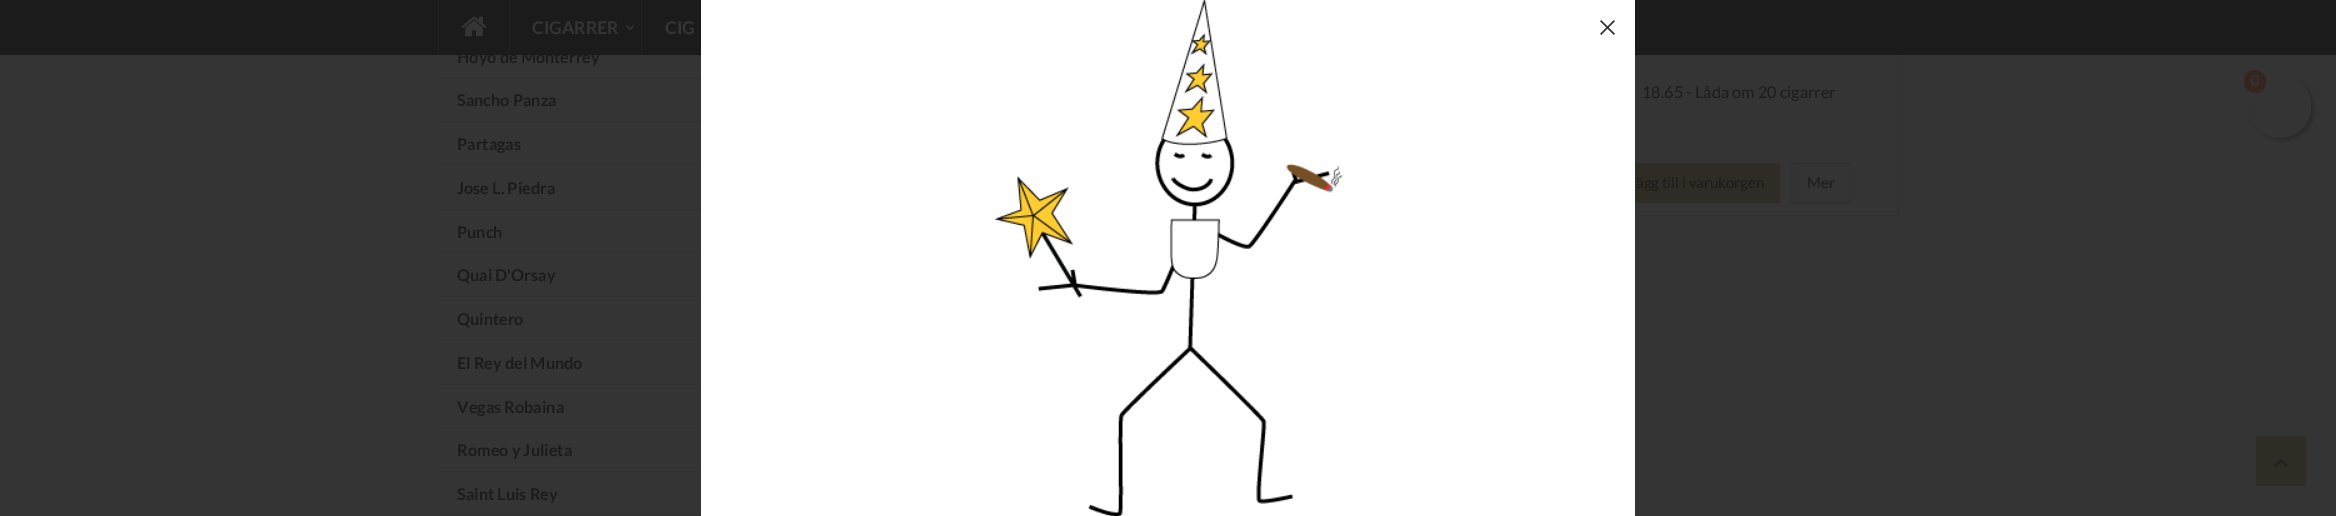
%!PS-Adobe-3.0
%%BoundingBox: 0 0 2336 516
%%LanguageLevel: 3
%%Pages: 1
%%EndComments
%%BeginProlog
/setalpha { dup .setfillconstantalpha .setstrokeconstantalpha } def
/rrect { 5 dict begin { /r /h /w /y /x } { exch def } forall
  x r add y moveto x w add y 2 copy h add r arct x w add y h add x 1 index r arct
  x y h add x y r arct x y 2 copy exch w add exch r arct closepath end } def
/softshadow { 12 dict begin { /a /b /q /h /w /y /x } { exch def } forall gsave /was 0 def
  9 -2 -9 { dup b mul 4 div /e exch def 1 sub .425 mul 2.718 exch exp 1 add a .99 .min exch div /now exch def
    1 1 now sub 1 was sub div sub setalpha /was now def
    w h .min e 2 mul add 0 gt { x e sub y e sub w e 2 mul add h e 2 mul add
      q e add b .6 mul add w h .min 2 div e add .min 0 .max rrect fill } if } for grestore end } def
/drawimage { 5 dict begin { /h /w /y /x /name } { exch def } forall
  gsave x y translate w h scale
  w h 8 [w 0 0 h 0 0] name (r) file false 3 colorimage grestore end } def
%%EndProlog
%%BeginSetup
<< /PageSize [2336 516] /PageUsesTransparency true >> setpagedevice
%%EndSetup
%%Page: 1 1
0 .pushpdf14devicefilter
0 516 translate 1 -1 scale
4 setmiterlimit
0.204 setgray
0 0 2336 516 rectfill
0.188 setgray
1536.5 -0.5 362 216 rectstroke
0.106 setgray
0 0 2336 55 rectfill
1 setgray
701 0 934 516 rectfill
(images/1.raw) 994 0 349 516 drawimage
(images/2.raw) 1600 20 15 15 drawimage
0.125 setgray
438 0 1 55 rectfill
(images/3.raw) 461 16 26 21 drawimage
(images/4.raw) 625 25 10 6 drawimage
641 0 1 55 rectfill
0.106 setgray
2251 78 63 62 31 2.5 0.5 softshadow
0.204 setgray
2249 75 62 63 31 rrect fill
0.204 0.145 0.129 setrgbcolor
2244 70 22 23 11 rrect fill
0.188 setgray
438 78 263 1 rectfill
438 121 263 1 rectfill
438 165 263 1 rectfill
438 209 263 1 rectfill
438 253 263 1 rectfill
438 296 263 1 rectfill
438 340 263 1 rectfill
438 384 263 1 rectfill
438 428 263 1 rectfill
438 471 263 1 rectfill
438 515 263 1 rectfill
0.184 0.169 0.145 setrgbcolor
1635 163 145 40 rectfill
0.188 setgray
1791.5 163.5 59 39 rectstroke
0.184 0.169 0.145 setrgbcolor
2256 436 50 50 2.5 rrect fill
(images/5.raw) 2274 459 14 8 drawimage
/Lato-Bold [17.5 0 0 -17.5 0 0] selectfont
0.204 setgray
532 34 moveto (CIGARRER) show
665 34 moveto (CIG) show
/Lato-Bold [15 0 0 -15 0 0] selectfont
2251 86 moveto (0) show
/Lato-Bold [16.25 0 0 -16.25 0 0] selectfont
0.106 setgray
457 63 moveto (Hoyo de Monterrey) show
0.125 setgray
509 0 1 55 rectfill
0.106 setgray
457 106 moveto (Sancho Panza) show
457 150 moveto (Partagas) show
457 194 moveto (Jose L. Piedra) show
457 238 moveto (Punch) show
457 281 moveto (Quai D'Orsay) show
457 325 moveto (Quintero) show
457 369 moveto (El Rey del Mundo) show
457 413 moveto (Vegas Robaina) show
457 456 moveto (Romeo y Julieta) show
457 500 moveto (Saint Luis Rey) show
/Lato-Regular [16.25 0 0 -16.25 0 0] selectfont
1642 98 moveto (18.65 - Låda om 20 cigarrer) show
/Lato-Regular [15 0 0 -15 0 0] selectfont
1636 188 moveto (ägg till i varukorgen) show
1807 188 moveto (Mer) show
.poppdf14devicefilter showpage
%%EOF
